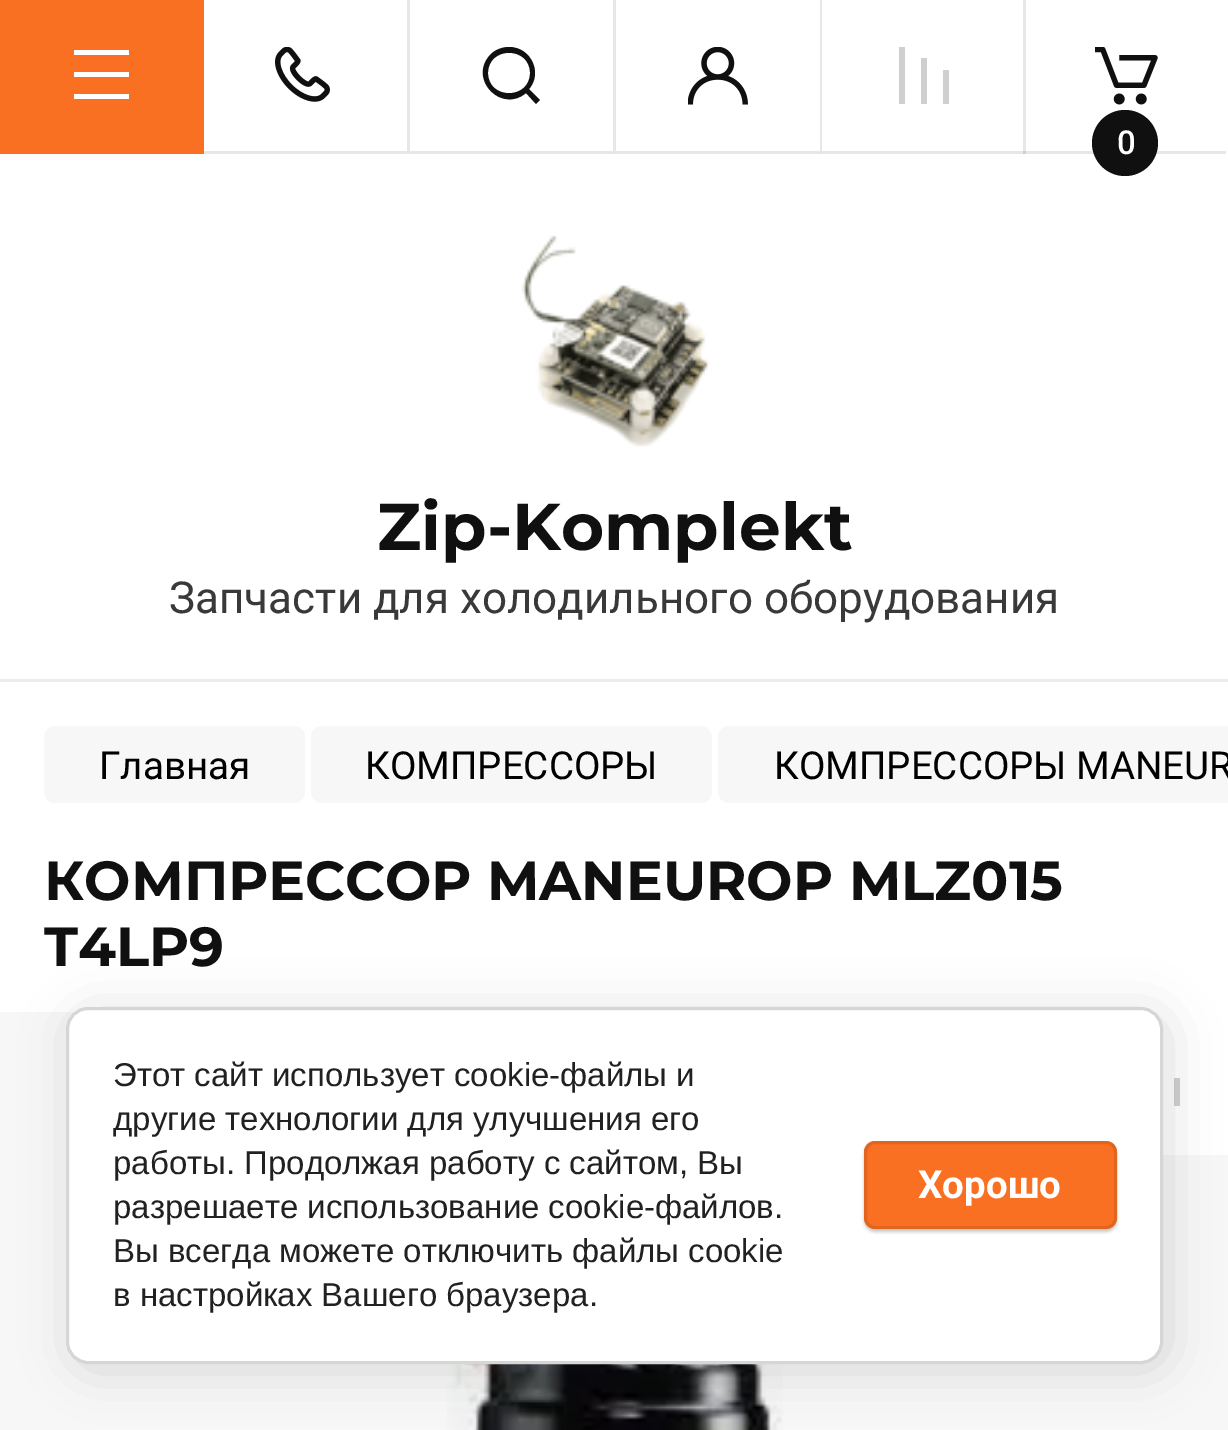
%!PS-Adobe-3.0
%%BoundingBox: 0 0 1228 1430
%%LanguageLevel: 3
%%Pages: 1
%%EndComments
%%BeginProlog
/setalpha { dup .setfillconstantalpha .setstrokeconstantalpha } def
/rrect { 5 dict begin { /r /h /w /y /x } { exch def } forall
  x r add y moveto x w add y 2 copy h add r arct x w add y h add x 1 index r arct
  x y h add x y r arct x y 2 copy exch w add exch r arct closepath end } def
/softshadow { 12 dict begin { /a /b /q /h /w /y /x } { exch def } forall gsave /was 0 def
  9 -2 -9 { dup b mul 4 div /e exch def 1 sub .425 mul 2.718 exch exp 1 add a .99 .min exch div /now exch def
    1 1 now sub 1 was sub div sub setalpha /was now def
    w h .min e 2 mul add 0 gt { x e sub y e sub w e 2 mul add h e 2 mul add
      q e add b .6 mul add w h .min 2 div e add .min 0 .max rrect fill } if } for grestore end } def
/drawimage { 5 dict begin { /h /w /y /x /name } { exch def } forall
  gsave x y translate w h scale
  w h 8 [w 0 0 h 0 0] name (r) file false 3 colorimage grestore end } def
%%EndProlog
%%BeginSetup
<< /PageSize [1228 1430] /PageUsesTransparency true >> setpagedevice
%%EndSetup
%%Page: 1 1
0 .pushpdf14devicefilter
0 1430 translate 1 -1 scale
4 setmiterlimit
1 setgray
0 0 1228 1430 rectfill
0.969 setgray
0 1012 1228 418 rectfill
0.98 0.439 0.133 setrgbcolor
0 0 204 154 rectfill
1 setgray
newpath 74 50 moveto 129 50 lineto 129 55 lineto 74 55 lineto closepath 74 72 moveto 129 72 lineto 129 77 lineto 74 77 lineto closepath 129 94 moveto 74 94 lineto 74 99 lineto 129 99 lineto closepath fill
0.906 setgray
204 151 203 3 rectfill
(images/1.raw) 275 47 55 55 drawimage
newpath 613 154 moveto 407 154 lineto 410 151 lineto 613 151 lineto closepath fill
0.1 setalpha
0.063 setgray
newpath 407 154 moveto 407 0 lineto 410 0 lineto 410 151 lineto closepath fill
1 setalpha
newpath 509 47 moveto 502 47 495 50 491 54 curveto 467 78 501 114 526 93 curveto 536 104 lineto 540 100 lineto 529 89 lineto 543 73 531 47 509 47 curveto closepath 488 73 moveto 488 46 530 46 530 73 curveto 530 100 488 100 488 73 curveto closepath fill
0.906 setgray
newpath 820 154 moveto 613 154 lineto 616 151 lineto 820 151 lineto closepath fill
0.1 setalpha
0.063 setgray
newpath 613 154 moveto 613 0 lineto 616 0 lineto 616 151 lineto closepath fill
1 setalpha
(images/2.raw) 688 47 60 58 drawimage
0.906 setgray
newpath 1026 154 moveto 820 154 lineto 822 151 lineto 1026 151 lineto closepath fill
0.1 setalpha
0.063 setgray
newpath 820 154 moveto 820 0 lineto 822 0 lineto 822 151 lineto closepath fill
1 setalpha
0.812 setgray
newpath 949 104 moveto 949 70 lineto 943 70 lineto 943 104 lineto closepath 927 58 moveto 927 104 lineto 921 104 lineto 921 58 lineto closepath 905 47 moveto 905 104 lineto 899 104 lineto 899 47 lineto closepath eofill
0.1 setalpha
0.063 setgray
newpath 1226 154 moveto 1023 154 lineto 1026 151 lineto 1226 151 lineto closepath fill
newpath 1023 154 moveto 1023 0 lineto 1026 0 lineto 1026 151 lineto closepath fill
1 setalpha
(images/3.raw) 1095 47 63 58 drawimage
newpath 1125 143 33 0 360 arc closepath fill
0.925 setgray
0 679 1228 3 rectfill
(images/4.raw) 521 235 189 212 drawimage
0.969 setgray
44 726 261 77 11 rrect fill
311 726 401 77 11 rrect fill
newpath 729 726 moveto 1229 726 lineto 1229 803 lineto 729 803 lineto 723 803 718 798 718 792 curveto 718 737 lineto 718 731 723 726 729 726 curveto closepath fill
1 setgray
1155 1012 73 143 rectfill
0.812 setgray
newpath 1180 1106 moveto 1180 1078 lineto 1174 1078 lineto 1174 1106 lineto closepath 1160 1070 moveto 1160 1106 lineto 1155 1106 lineto 1155 1070 lineto closepath 1141 1061 moveto 1141 1106 lineto 1136 1106 lineto 1136 1061 lineto closepath fill
(images/5.raw) 447 1364 336 66 drawimage
0 setgray
72 1012 1097 358 22 25 0.14 softshadow
1 setgray
67.5 1008.5 1094 354 20.5 rrect gsave fill grestore
0.839 setgray
3 setlinewidth
stroke
0 setgray
864 1144 253 88 11 1.5 0.2 softshadow
0.98 0.439 0.133 setrgbcolor
864 1141 253 88 11 rrect fill
0.1 setalpha
0 setgray
865.5 1142.5 250 85 9.5 rrect stroke
/Roboto-Medium [33 0 0 -33 0 0] selectfont
1 setalpha
1 setgray
1117 154 moveto (0) show
/Montserrat-Bold [66 0 0 -66 0 0] selectfont
0.063 setgray
377 550 moveto (Zip-Komplekt) show
/Roboto-Regular [44 0 0 -44 0 0] selectfont
0.224 setgray
169 613 moveto (Запчасти для холодильного оборудования) show
/Roboto-Regular [38.5 0 0 -38.5 0 0] selectfont
0 setgray
99 779 moveto (Главная) show
365 779 moveto (КОМПРЕССОРЫ) show
774 779 moveto (КОМПРЕССОРЫ MANEUR) show
/Montserrat-Bold [55 0 0 -55 0 0] selectfont
0.063 setgray
44 900 moveto (КОМПРЕССОР MANEUROP MLZ015) show
44 966 moveto (T4LP9) show
/LiberationSans-Regular [33 0 0 -33 0 0] selectfont
0.129 setgray
113 1086 moveto (Этот сайт использует cookie-файлы и) show
113 1130 moveto (другие технологии для улучшения его) show
113 1174 moveto (работы. Продолжая работу с сайтом, Вы) show
113 1218 moveto (разрешаете использование cookie-файлов.) show
113 1262 moveto (Вы всегда можете отключить файлы cookie) show
113 1306 moveto (в настройках Вашего браузера.) show
/Roboto-Bold [38.5 0 0 -38.5 0 0] selectfont
1 setgray
918 1198 moveto (Хорошо) show
.poppdf14devicefilter showpage
%%EOF
